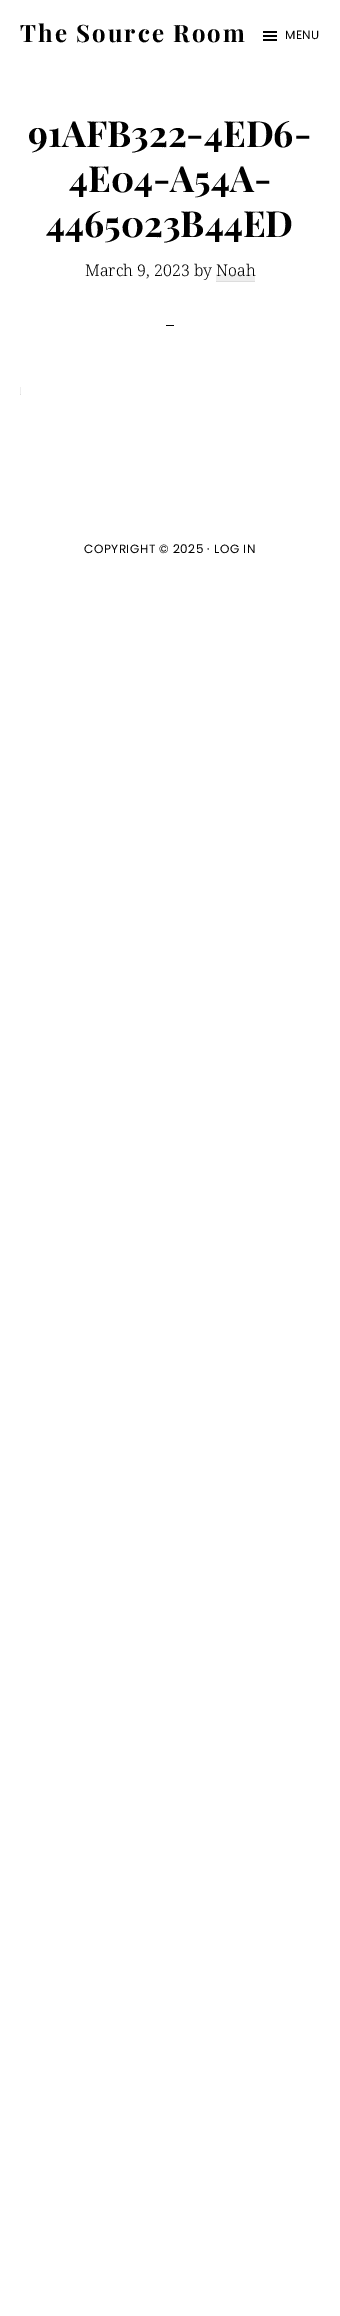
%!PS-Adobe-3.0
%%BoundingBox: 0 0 340 2316
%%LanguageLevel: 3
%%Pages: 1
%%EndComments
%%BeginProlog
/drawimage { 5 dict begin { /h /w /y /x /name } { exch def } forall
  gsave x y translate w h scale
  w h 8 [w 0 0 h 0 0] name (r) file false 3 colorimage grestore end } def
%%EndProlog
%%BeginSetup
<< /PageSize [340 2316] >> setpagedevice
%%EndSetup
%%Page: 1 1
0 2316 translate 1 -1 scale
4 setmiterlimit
1 setgray
0 0 340 2316 rectfill
(images/1.raw) 263 31 14 10 drawimage
0.933 setgray
216 274 39 7 rectfill
0.867 setgray
216 281 39 1 rectfill
0 setgray
166 325 8 1 rectfill
0.933 setgray
20 387 1 7 rectfill
0.867 setgray
20 394 1 1 rectfill
/PlayfairDisplay-Bold [24 0 0 -24 0 0] selectfont
0 setgray
20 42 moveto 2 0 (The Source Room) ashow
/Poppins-Regular [12 0 0 -12 0 0] selectfont
285 39 moveto 0.5 0 (MENU) ashow
/PlayfairDisplay-Bold [36 0 0 -36 0 0] selectfont
28 147 moveto (91AFB322-4ED6-) show
69 192 moveto (4E04-A54A-) show
46 237 moveto (4465023B44ED) show
/NotoSerif-Light [16 0 0 -16 0 0] selectfont
85 276 moveto (March 9, 2023 by) show
216 276 moveto (Noah) show
/Poppins-Regular [12 0 0 -12 0 0] selectfont
84 553 moveto 0.5 0 (COPYRIGHT © 2025 · LOG IN) ashow
showpage
%%EOF
